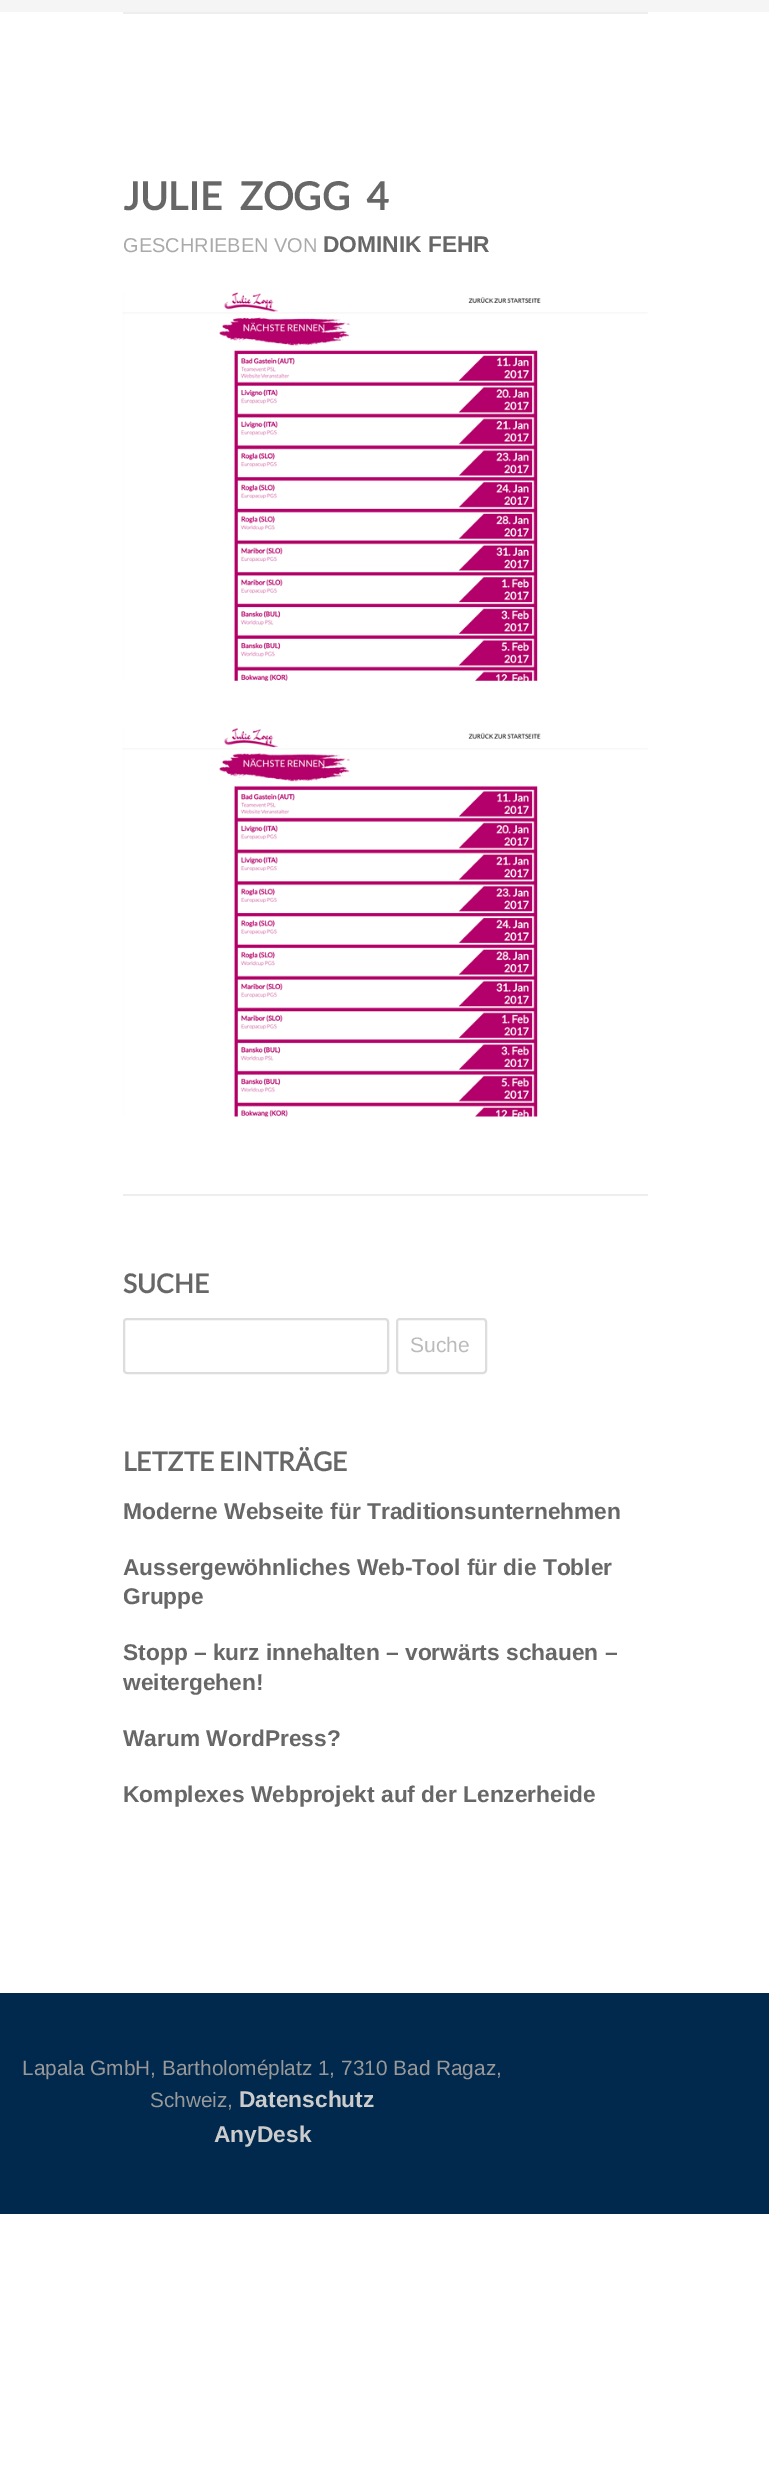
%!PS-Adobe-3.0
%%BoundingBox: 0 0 769 2490
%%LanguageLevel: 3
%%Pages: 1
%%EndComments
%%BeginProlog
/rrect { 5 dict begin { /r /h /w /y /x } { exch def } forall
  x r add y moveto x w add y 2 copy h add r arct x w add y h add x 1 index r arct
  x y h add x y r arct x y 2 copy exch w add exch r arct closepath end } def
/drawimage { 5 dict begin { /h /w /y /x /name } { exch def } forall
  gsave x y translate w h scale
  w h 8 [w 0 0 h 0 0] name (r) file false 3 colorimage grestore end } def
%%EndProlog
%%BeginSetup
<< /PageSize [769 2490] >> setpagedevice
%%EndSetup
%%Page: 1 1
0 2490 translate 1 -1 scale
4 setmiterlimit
1 setgray
0 0 769 2490 rectfill
0.961 setgray
0 0 769 12 rectfill
0.933 setgray
123 12 525 2 rectfill
123 1194 525 2 rectfill
(images/1.raw) 122 292 526 389 drawimage
(images/2.raw) 122 728 526 389 drawimage
0.867 setgray
2 setlinewidth
124 1319 264 54 3 rrect stroke
397 1319 89 54 3 rrect stroke
0 0.161 0.302 setrgbcolor
0 1993 769 221 rectfill
/Lato-Bold [38.5 0 0 -38.5 0 0] selectfont
0.404 setgray
123 210 moveto 9 0 32 (JULIE ZOGG 4) widthshow
/LiberationSans-Regular [20 0 0 -20 0 0] selectfont
0.667 setgray
123 252 moveto (GESCHRIEBEN VON) show
/LiberationSans-Bold [22.75 0 0 -22.75 0 0] selectfont
0.404 setgray
323 252 moveto (DOMINIK FEHR) show
/Lato-Bold [26.25 0 0 -26.25 0 0] selectfont
123 1293 moveto (SUCHE) show
/LiberationSans-Regular [21 0 0 -21 0 0] selectfont
0.733 setgray
410 1352 moveto (Suche) show
/Lato-Bold [26.25 0 0 -26.25 0 0] selectfont
0.404 setgray
123 1471 moveto (LETZTE EINTRÄGE) show
/LiberationSans-Bold [22.75 0 0 -22.75 0 0] selectfont
123 1519 moveto (Moderne Webseite für Traditionsunternehmen) show
123 1575 moveto (Aussergewöhnliches Web-Tool für die Tobler) show
123 1604 moveto (Gruppe) show
123 1660 moveto (Stopp – kurz innehalten – vorwärts schauen –) show
123 1690 moveto (weitergehen!) show
123 1746 moveto (Warum WordPress?) show
123 1802 moveto (Komplexes Webprojekt auf der Lenzerheide) show
/LiberationSans-Regular [20.8 0 0 -20.8 0 0] selectfont
0.6 setgray
22 2075 moveto (Lapala GmbH, Bartholoméplatz 1, 7310 Bad Ragaz,) show
150 2107 moveto (Schweiz,) show
/LiberationSans-Bold [22.75 0 0 -22.75 0 0] selectfont
0.8 setgray
239 2107 moveto (Datenschutz) show
214 2142 moveto (AnyDesk) show
showpage
%%EOF
